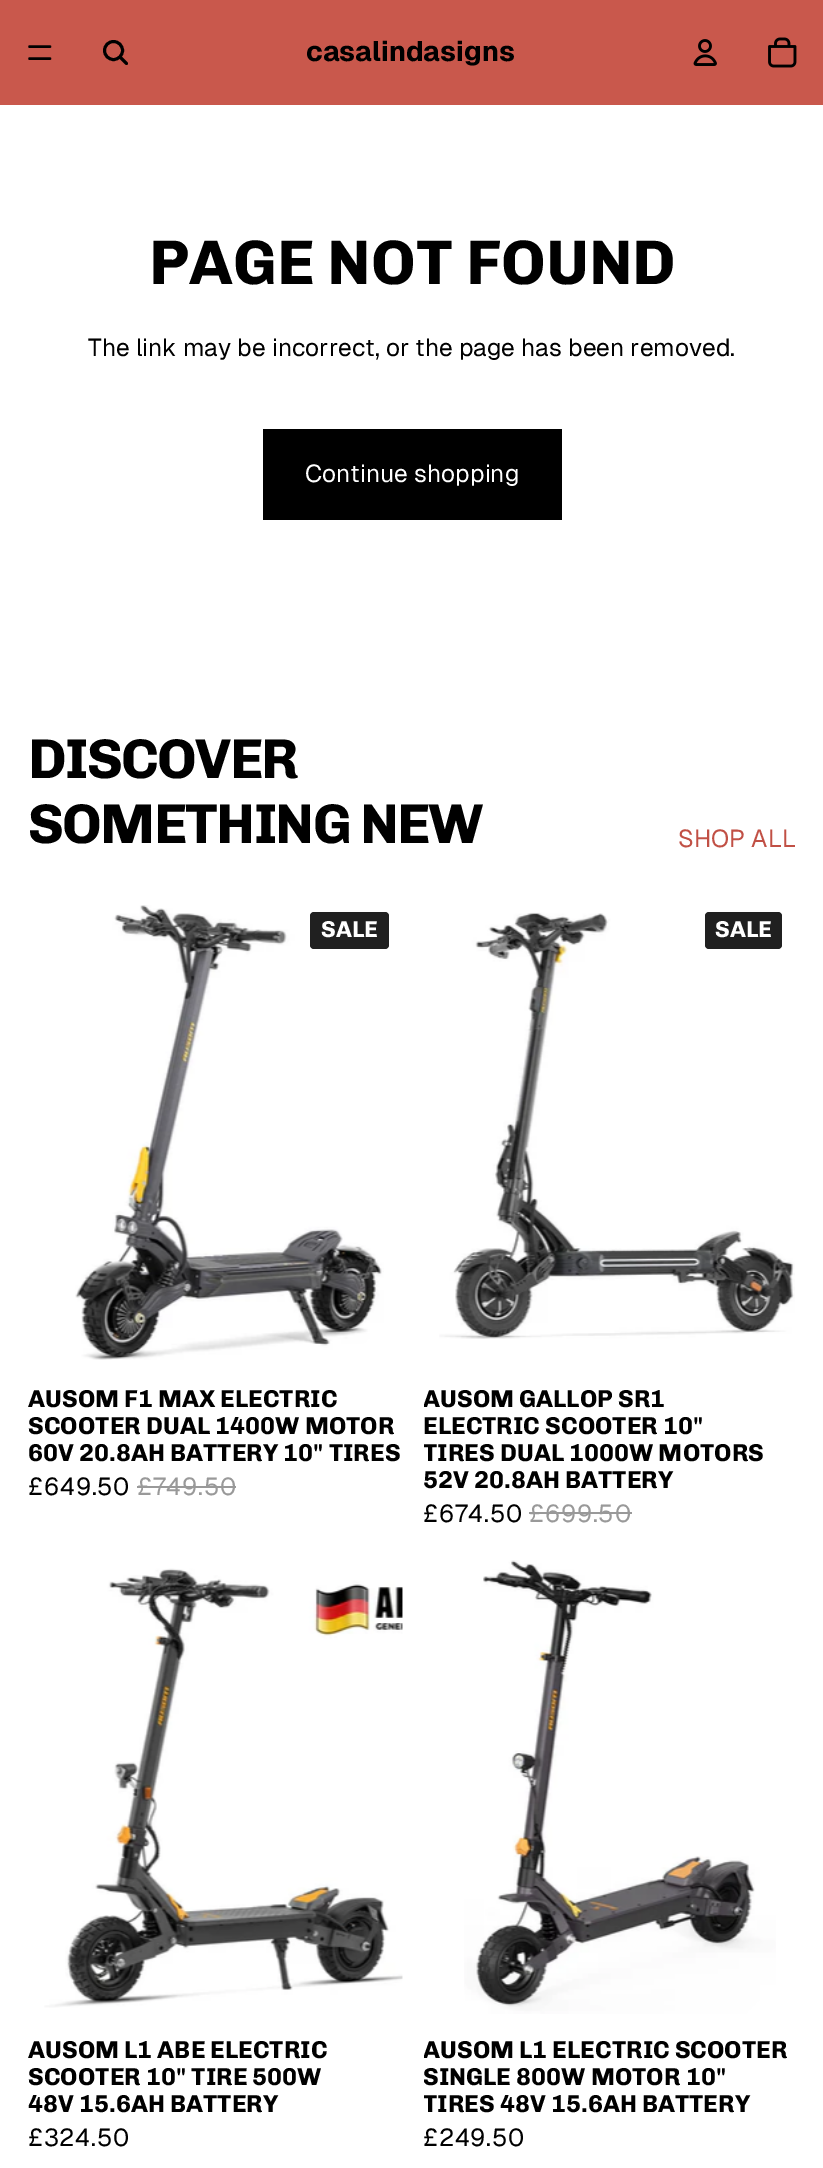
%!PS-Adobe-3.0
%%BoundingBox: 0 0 823 2168
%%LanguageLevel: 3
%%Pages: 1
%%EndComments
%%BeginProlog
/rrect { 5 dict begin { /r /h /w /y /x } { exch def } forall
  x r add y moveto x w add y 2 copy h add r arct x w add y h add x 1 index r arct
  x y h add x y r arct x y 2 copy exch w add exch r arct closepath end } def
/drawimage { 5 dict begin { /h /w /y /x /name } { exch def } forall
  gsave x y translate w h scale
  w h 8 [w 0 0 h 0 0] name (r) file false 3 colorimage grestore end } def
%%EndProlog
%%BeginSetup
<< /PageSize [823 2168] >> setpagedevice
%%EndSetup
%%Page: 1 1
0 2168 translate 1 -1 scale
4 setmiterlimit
1 setgray
0 0 823 2168 rectfill
0.788 0.345 0.298 setrgbcolor
0 0 823 105 rectfill
0 setgray
2.5 setlinewidth
1 setlinecap
newpath 29.5 46.5 moveto 50 46.5 lineto 29.5 58.5 moveto 50 58.5 lineto stroke
2.9 setlinewidth
0 setlinecap
newpath 113.5 50.5 9 0 360 arc closepath stroke
1 setlinecap
1 setlinejoin
newpath 120.5 57.5 moveto 126.5 63.5 lineto stroke
(images/1.raw) 693 39 24 27 drawimage
(images/2.raw) 768 37 29 31 drawimage
263 429 299 91 rectfill
(images/3.raw) 75 905 309 455 drawimage
0.125 setgray
310 912 79 37 4 rrect fill
0.6 setgray
137 1486 99 2 rectfill
(images/4.raw) 439 912 356 427 drawimage
0.125 setgray
705 912 77 37 4 rrect fill
0.6 setgray
529 1512 103 2 rectfill
(images/5.raw) 44 1568 359 440 drawimage
(images/6.raw) 464 1560 312 454 drawimage
/Geist-Bold [28 0 0 -28 0 0] selectfont
0 setgray
306 61 moveto (casalindasigns) show
/Chivo-Bold [63 0 0 -63 0 0] selectfont
149 284 moveto (PAGE NOT FOUND) show
/Geist-Regular [24.5 0 0 -24.5 0 0] selectfont
88 356 moveto (The link may be incorrect, or the page has been removed.) show
1 setgray
305 482 moveto (Continue shopping) show
/Chivo-Bold [56 0 0 -56 0 0] selectfont
0 setgray
28 778 moveto -1.75 0 (DISCOVER) ashow
28 843 moveto -1.75 0 (SOMETHING NEW) ashow
/Geist-Regular [24.5 0 0 -24.5 0 0] selectfont
0.757 0.314 0.271 setrgbcolor
678 847 moveto (SHOP ALL) show
/Chivo-Bold [23 0 0 -23 0 0] selectfont
1 setgray
321 937 moveto (SALE) show
/Chivo-Bold [24.5 0 0 -24.5 0 0] selectfont
0 setgray
28 1407 moveto (AUSOM F1 MAX ELECTRIC) show
28 1434 moveto (SCOOTER DUAL 1400W MOTOR) show
28 1461 moveto (60V 20.8AH BATTERY 10" TIRES) show
/Geist-Regular [24.5 0 0 -24.5 0 0] selectfont
28 1495 moveto 0.75 0 (£649.50) ashow
0.6 setgray
137 1495 moveto 0.75 0 (£749.50) ashow
/Chivo-Bold [23 0 0 -23 0 0] selectfont
1 setgray
715 937 moveto (SALE) show
gsave
424 898 372 630 rectclip
/Chivo-Bold [24.5 0 0 -24.5 0 0] selectfont
0 setgray
423 1407 moveto (AUSOM GALLOP SR1) show
grestore
/Chivo-Bold [24.5 0 0 -24.5 0 0] selectfont
0 setgray
423 1434 moveto (ELECTRIC SCOOTER 10") show
gsave
424 898 372 630 rectclip
423 1461 moveto (TIRES DUAL 1000W MOTORS) show
grestore
423 1488 moveto (52V 20.8AH BATTERY) show
/Geist-Regular [24.5 0 0 -24.5 0 0] selectfont
423 1522 moveto 0.75 0 (£674.50) ashow
0.6 setgray
529 1522 moveto 0.75 0 (£699.50) ashow
/Chivo-Bold [24.5 0 0 -24.5 0 0] selectfont
0 setgray
28 2058 moveto (AUSOM L1 ABE ELECTRIC) show
28 2085 moveto (SCOOTER 10" TIRE 500W) show
28 2112 moveto (48V 15.6AH BATTERY) show
/Geist-Regular [24.5 0 0 -24.5 0 0] selectfont
28 2146 moveto 0.75 0 (£324.50) ashow
gsave
424 1549 372 604 rectclip
/Chivo-Bold [24.5 0 0 -24.5 0 0] selectfont
423 2058 moveto (AUSOM L1 ELECTRIC SCOOTER) show
423 2085 moveto (SINGLE 800W MOTOR 10") show
423 2112 moveto (TIRES 48V 15.6AH BATTERY) show
grestore
423 2146 moveto 0.75 0 (£249.50) ashow
showpage
%%EOF
